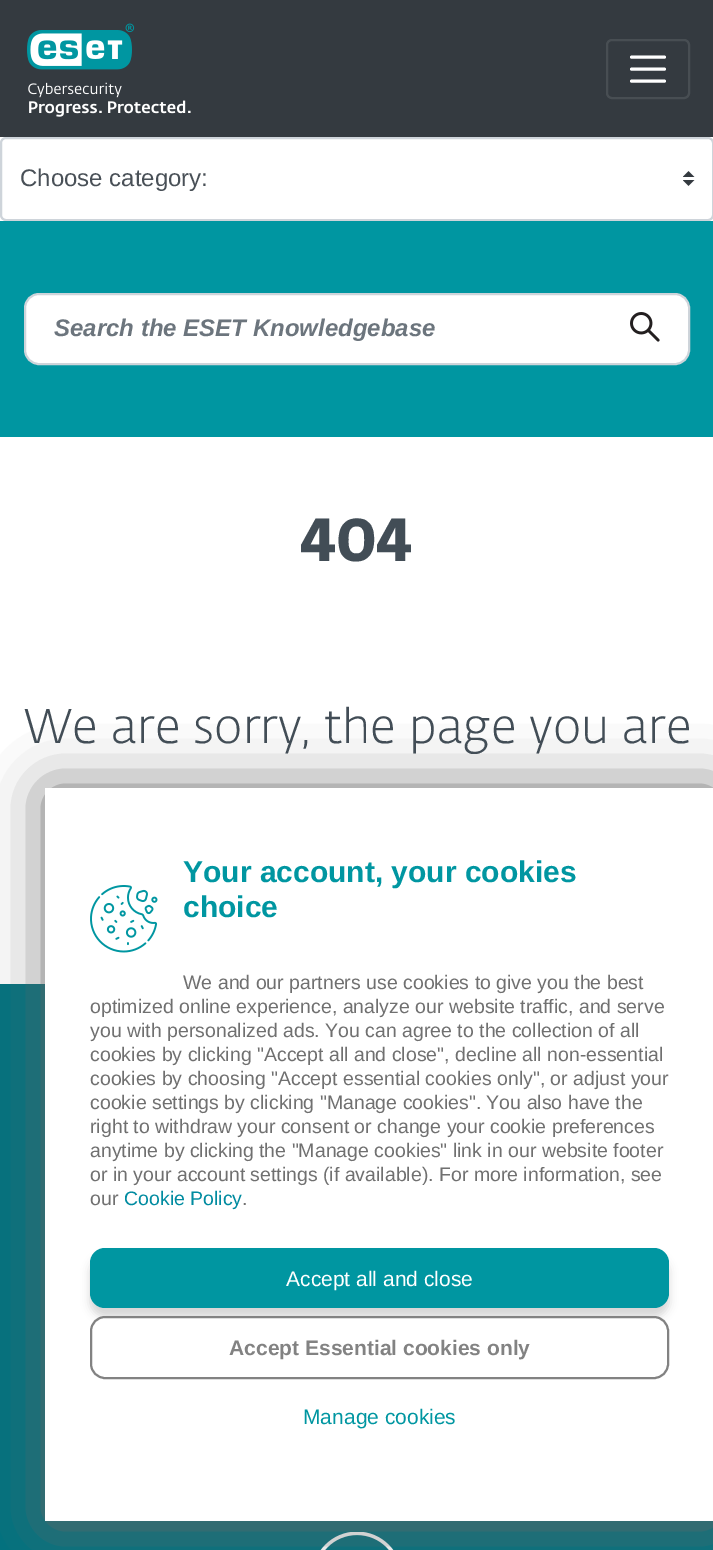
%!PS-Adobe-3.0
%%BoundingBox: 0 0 713 1550
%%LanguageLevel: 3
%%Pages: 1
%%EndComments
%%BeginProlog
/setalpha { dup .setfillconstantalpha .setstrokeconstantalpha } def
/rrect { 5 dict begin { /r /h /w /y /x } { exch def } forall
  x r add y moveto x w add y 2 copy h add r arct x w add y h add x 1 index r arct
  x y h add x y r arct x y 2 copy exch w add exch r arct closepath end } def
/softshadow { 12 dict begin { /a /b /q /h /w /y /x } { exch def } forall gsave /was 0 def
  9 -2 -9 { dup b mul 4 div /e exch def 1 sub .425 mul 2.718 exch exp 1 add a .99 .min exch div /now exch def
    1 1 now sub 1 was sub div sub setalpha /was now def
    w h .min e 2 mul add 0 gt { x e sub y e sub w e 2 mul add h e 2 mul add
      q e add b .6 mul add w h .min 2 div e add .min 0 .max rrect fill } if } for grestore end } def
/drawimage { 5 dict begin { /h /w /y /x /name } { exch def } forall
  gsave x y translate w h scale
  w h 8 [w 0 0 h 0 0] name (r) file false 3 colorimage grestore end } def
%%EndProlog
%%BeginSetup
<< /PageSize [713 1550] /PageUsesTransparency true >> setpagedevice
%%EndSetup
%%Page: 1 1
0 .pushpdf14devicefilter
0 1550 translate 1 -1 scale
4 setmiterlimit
1 setgray
0 0 713 1550 rectfill
0.204 0.227 0.251 setrgbcolor
0 0 713 137 rectfill
(images/1.raw) 27 23 164 94 drawimage
0.282 0.306 0.325 setrgbcolor
2 setlinewidth
607 40 82 58 5 rrect stroke
1 setgray
3 setlinewidth
1 setlinecap
newpath 631.5 57 moveto 664.5 57 lineto 631.5 69 moveto 664.5 69 lineto 631.5 81 moveto 664.5 81 lineto stroke
(images/2.raw) 683 171 12 15 drawimage
0.808 0.831 0.855 setrgbcolor
2 setlinewidth
0 setlinecap
1 138 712 82 5 rrect stroke
0 0.588 0.631 setrgbcolor
0 221 713 216 rectfill
1 setgray
25 294 664 70 14 rrect gsave fill grestore
0.808 0.831 0.855 setrgbcolor
stroke
(images/3.raw) 630 312 30 30 drawimage
0 0.443 0.498 setrgbcolor
0 984 713 566 rectfill
(images/4.raw) 320 1532 74 18 drawimage
0.4 setgray
48 791 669 733 0 30 1 softshadow
1 setgray
45 788 668 733 rectfill
(images/5.raw) 90 885 68 68 drawimage
0 setgray
90 1257 579 60 15 4.5 0.16 softshadow
0 0.588 0.631 setrgbcolor
90 1248 579 60 15 rrect fill
1 setgray
91 1317 577 61 14 rrect gsave fill grestore
0.51 setgray
stroke
/LiberationSans-Regular [24 0 0 -24 0 0] selectfont
0.286 0.314 0.341 setrgbcolor
20 186 moveto (Choose category:) show
/LiberationSans-BoldItalic [24 0 0 -24 0 0] selectfont
0.424 0.459 0.49 setrgbcolor
54 336 moveto (Search the ESET Knowledgebase) show
/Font-Bold [60 0 0 -60 0 0] selectfont
0.259 0.302 0.337 setrgbcolor
301 561 moveto (404) show
/Font-Light [48 0 0 -48 0 0] selectfont
23 743 moveto (We are sorry, the page you are) show
/LiberationSans-Bold [30 0 0 -30 0 0] selectfont
0 0.588 0.631 setrgbcolor
183 882 moveto (Your account, your cookies) show
183 917 moveto (choice) show
/LiberationSans-Regular [19.5 0 0 -19.5 0 0] selectfont
0.439 setgray
183 989 moveto (We and our partners use cookies to give you the best) show
90 1013 moveto (optimized online experience, analyze our website traffic, and serve) show
90 1037 moveto (you with personalized ads. You can agree to the collection of all) show
90 1061 moveto (cookies by clicking "Accept all and close", decline all non-essential) show
90 1085 moveto (cookies by choosing "Accept essential cookies only", or adjust your) show
90 1109 moveto (cookie settings by clicking "Manage cookies". You also have the) show
90 1133 moveto (right to withdraw your consent or change your cookie preferences) show
90 1157 moveto (anytime by clicking the "Manage cookies" link in our website footer) show
90 1181 moveto (or in your account settings \(if available\). For more information, see) show
90 1205 moveto (our) show
0 0.545 0.627 setrgbcolor
124 1205 moveto (Cookie Policy) show
0.439 setgray
242 1205 moveto (.) show
/LiberationSans-Regular [21 0 0 -21 0 0] selectfont
1 setgray
286 1286 moveto (Accept all and close) show
/LiberationSans-Bold [21 0 0 -21 0 0] selectfont
0.51 setgray
229 1355 moveto (Accept Essential cookies only) show
/LiberationSans-Regular [21 0 0 -21 0 0] selectfont
0 0.588 0.631 setrgbcolor
303 1424 moveto (Manage cookies) show
.poppdf14devicefilter showpage
%%EOF
